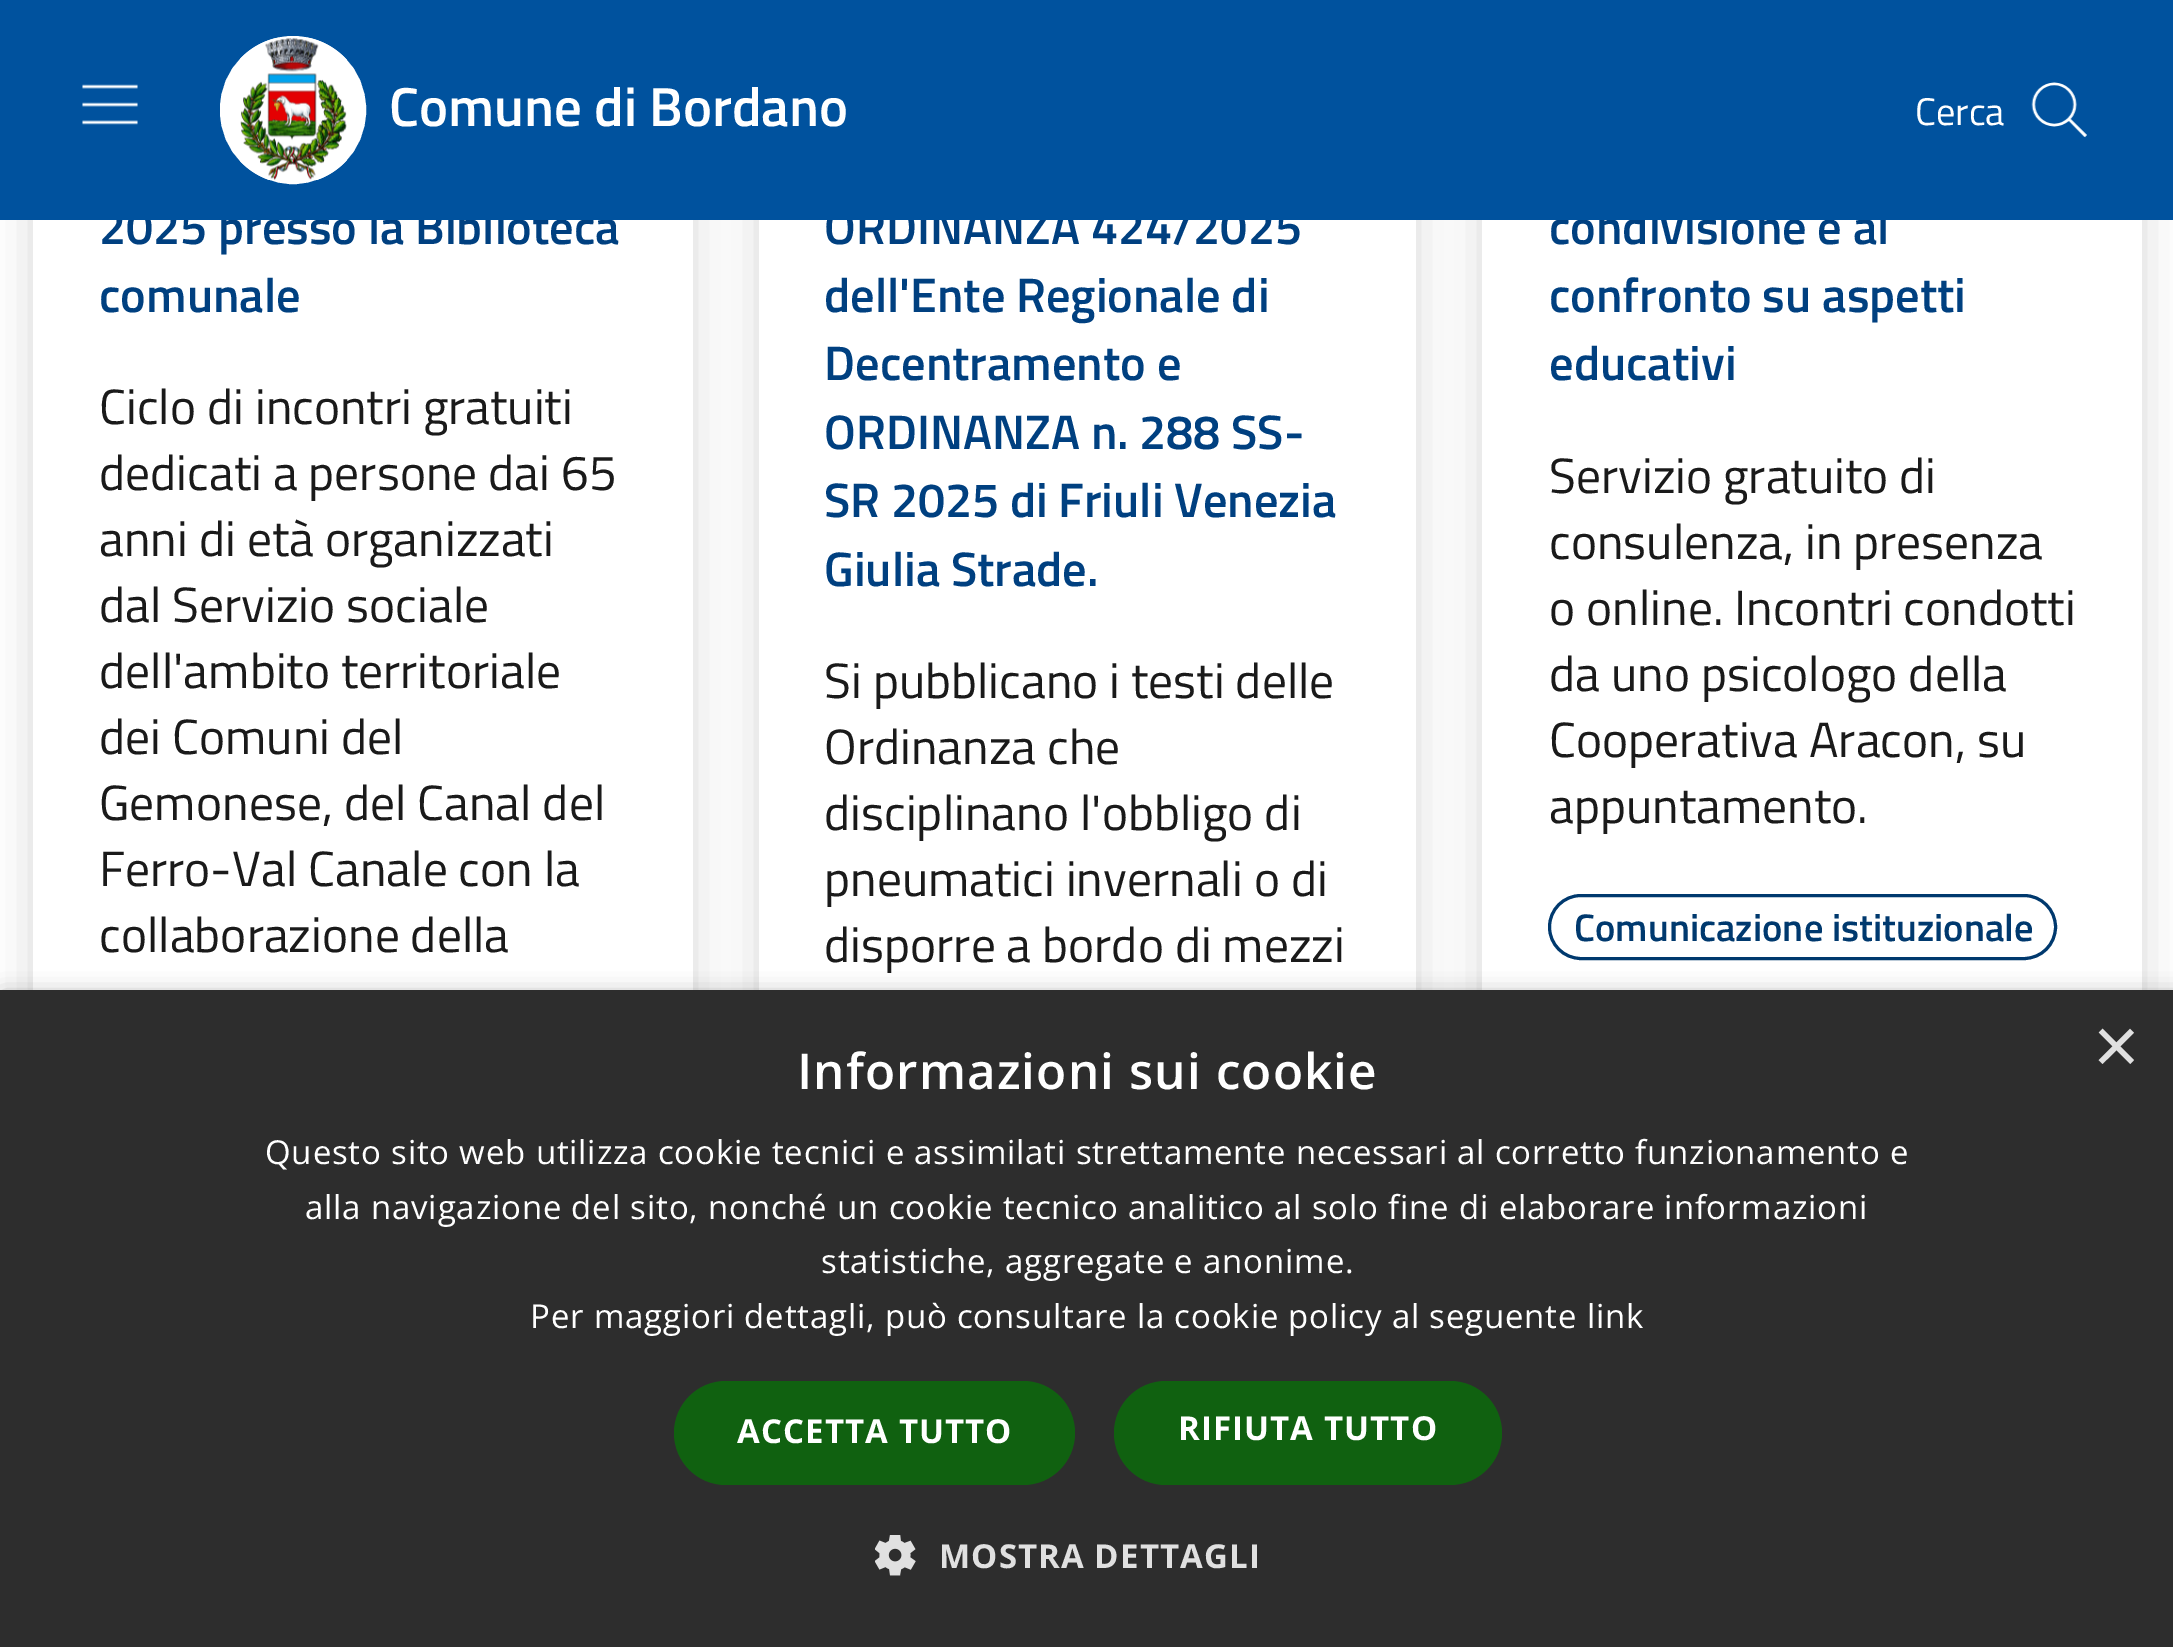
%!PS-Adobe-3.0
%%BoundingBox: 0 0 2173 1647
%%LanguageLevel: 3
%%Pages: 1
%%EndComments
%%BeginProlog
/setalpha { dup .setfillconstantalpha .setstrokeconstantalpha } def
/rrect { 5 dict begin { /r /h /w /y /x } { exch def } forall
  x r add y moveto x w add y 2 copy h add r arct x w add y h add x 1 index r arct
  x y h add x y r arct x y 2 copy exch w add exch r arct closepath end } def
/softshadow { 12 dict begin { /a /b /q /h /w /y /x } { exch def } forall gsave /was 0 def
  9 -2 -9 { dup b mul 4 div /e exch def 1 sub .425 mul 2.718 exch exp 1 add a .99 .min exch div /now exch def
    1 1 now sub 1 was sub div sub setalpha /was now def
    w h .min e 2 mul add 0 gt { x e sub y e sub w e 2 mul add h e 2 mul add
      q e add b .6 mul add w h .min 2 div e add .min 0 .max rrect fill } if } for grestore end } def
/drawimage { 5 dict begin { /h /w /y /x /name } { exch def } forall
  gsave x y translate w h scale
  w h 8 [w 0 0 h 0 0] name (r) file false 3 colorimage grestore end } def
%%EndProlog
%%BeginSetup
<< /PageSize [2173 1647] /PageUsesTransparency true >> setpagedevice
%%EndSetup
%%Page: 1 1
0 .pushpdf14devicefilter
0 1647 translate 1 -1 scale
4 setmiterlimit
1 setgray
0 0 2173 1647 rectfill
0 setgray
33 -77 660 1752 11 22 0.15 softshadow
1 setgray
33 220 660 770 rectfill
0 setgray
759 -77 657 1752 11 22 0.15 softshadow
1 setgray
759 220 657 770 rectfill
0 setgray
1482 -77 660 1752 11 22 0.15 softshadow
1 setgray
1482 220 660 770 rectfill
0 0.224 0.431 setrgbcolor
3 setlinewidth
1549.5 895.5 506 63 31.5 rrect stroke
0 setgray
3 996 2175 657 0 11 0.35 softshadow
0.176 setgray
0 990 2173 657 rectfill
0.063 0.38 0.063 setrgbcolor
674 1381 401 104 52 rrect fill
1114 1381 388 104 52 rrect fill
(images/4.raw) 875 1535 41 41 drawimage
/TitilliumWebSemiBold-SemiBold [48.4 0 0 -48.4 0 0] selectfont
0 0.251 0.502 setrgbcolor
99 244 moveto (2025 presso la Biblioteca) show
99 312 moveto (comunale) show
/TitilliumWeb-Regular [49.5 0 0 -49.5 0 0] selectfont
0.102 setgray
99 424 moveto (Ciclo di incontri gratuiti) show
99 490 moveto (dedicati a persone dai 65) show
99 556 moveto (anni di età organizzati) show
99 622 moveto (dal Servizio sociale) show
99 688 moveto (dell'ambito territoriale) show
99 754 moveto (dei Comuni del) show
99 820 moveto (Gemonese, del Canal del) show
99 886 moveto (Ferro-Val Canale con la) show
99 952 moveto (collaborazione della) show
/TitilliumWebSemiBold-SemiBold [48.4 0 0 -48.4 0 0] selectfont
0 0.251 0.502 setrgbcolor
824 244 moveto (ORDINANZA 424/2025) show
824 312 moveto (dell'Ente Regionale di) show
824 380 moveto (Decentramento e) show
824 449 moveto (ORDINANZA n. 288 SS-) show
824 517 moveto (SR 2025 di Friuli Venezia) show
824 586 moveto (Giulia Strade.) show
/TitilliumWeb-Regular [49.5 0 0 -49.5 0 0] selectfont
0.102 setgray
824 698 moveto (Si pubblicano i testi delle) show
824 764 moveto (Ordinanza che) show
824 830 moveto (disciplinano l'obbligo di) show
824 896 moveto (pneumatici invernali o di) show
824 962 moveto (disporre a bordo di mezzi) show
/TitilliumWebSemiBold-SemiBold [48.4 0 0 -48.4 0 0] selectfont
0 0.251 0.502 setrgbcolor
1549 244 moveto (condivisione e al) show
0 0.322 0.62 setrgbcolor
0 0 2173 220 rectfill
(images/1.raw) 82 84 56 41 drawimage
(images/3.raw) 2031 82 56 56 drawimage
1 setgray
221.5 37.5 143 145 71.5 rrect gsave fill grestore
stroke
(images/2.raw) 240 38 107 142 drawimage
/TitilliumWeb-Regular [38.5 0 0 -38.5 0 0] selectfont
1915 125 moveto (Cerca) show
/TitilliumWebSemiBold-SemiBold [55 0 0 -55 0 0] selectfont
389 126 moveto (Comune di Bordano) show
/TitilliumWebSemiBold-SemiBold [48.4 0 0 -48.4 0 0] selectfont
0 0.251 0.502 setrgbcolor
1549 312 moveto (confronto su aspetti) show
1549 380 moveto (educativi) show
/TitilliumWeb-Regular [49.5 0 0 -49.5 0 0] selectfont
0.102 setgray
1549 493 moveto (Servizio gratuito di) show
1549 559 moveto (consulenza, in presenza) show
1549 625 moveto (o online. Incontri condotti) show
1549 691 moveto (da uno psicologo della) show
1549 757 moveto (Cooperativa Aracon, su) show
1549 823 moveto (appuntamento.) show
/TitilliumWebSemiBold-SemiBold [38.5 0 0 -38.5 0 0] selectfont
0 0.224 0.431 setrgbcolor
1574 941 moveto (Comunicazione istituzionale) show
/LiberationSans-Regular [80 0 0 -80 0 0] selectfont
0.878 setgray
2093 1073 moveto (×) show
/OpenSans-SemiBold [49.5 0 0 -49.5 0 0] selectfont
1 setgray
797 1089 moveto 1.1 0 (Informazioni sui cookie) ashow
/OpenSans-Regular [33 0 0 -33 0 0] selectfont
265 1164 moveto 0.82 0 (Questo sito web utilizza cookie tecnici e assimilati strettamente necessari al corretto funzionamento e) ashow
305 1219 moveto 0.82 0 (alla navigazione del sito, nonché un cookie tecnico analitico al solo fine di elaborare informazioni) ashow
821 1273 moveto 0.82 0 (statistiche, aggregate e anonime.) ashow
530 1328 moveto 0.82 0 (Per maggiori dettagli, può consultare la cookie policy al seguente link) ashow
/OpenSans-Bold [33 0 0 -33 0 0] selectfont
737 1443 moveto 1.1 0 (ACCETTA TUTTO) ashow
1178 1440 moveto 1.1 0 (RIFIUTA TUTTO) ashow
0.878 setgray
939 1568 moveto 1.1 0 (MOSTRA DETTAGLI) ashow
.poppdf14devicefilter showpage
%%EOF
